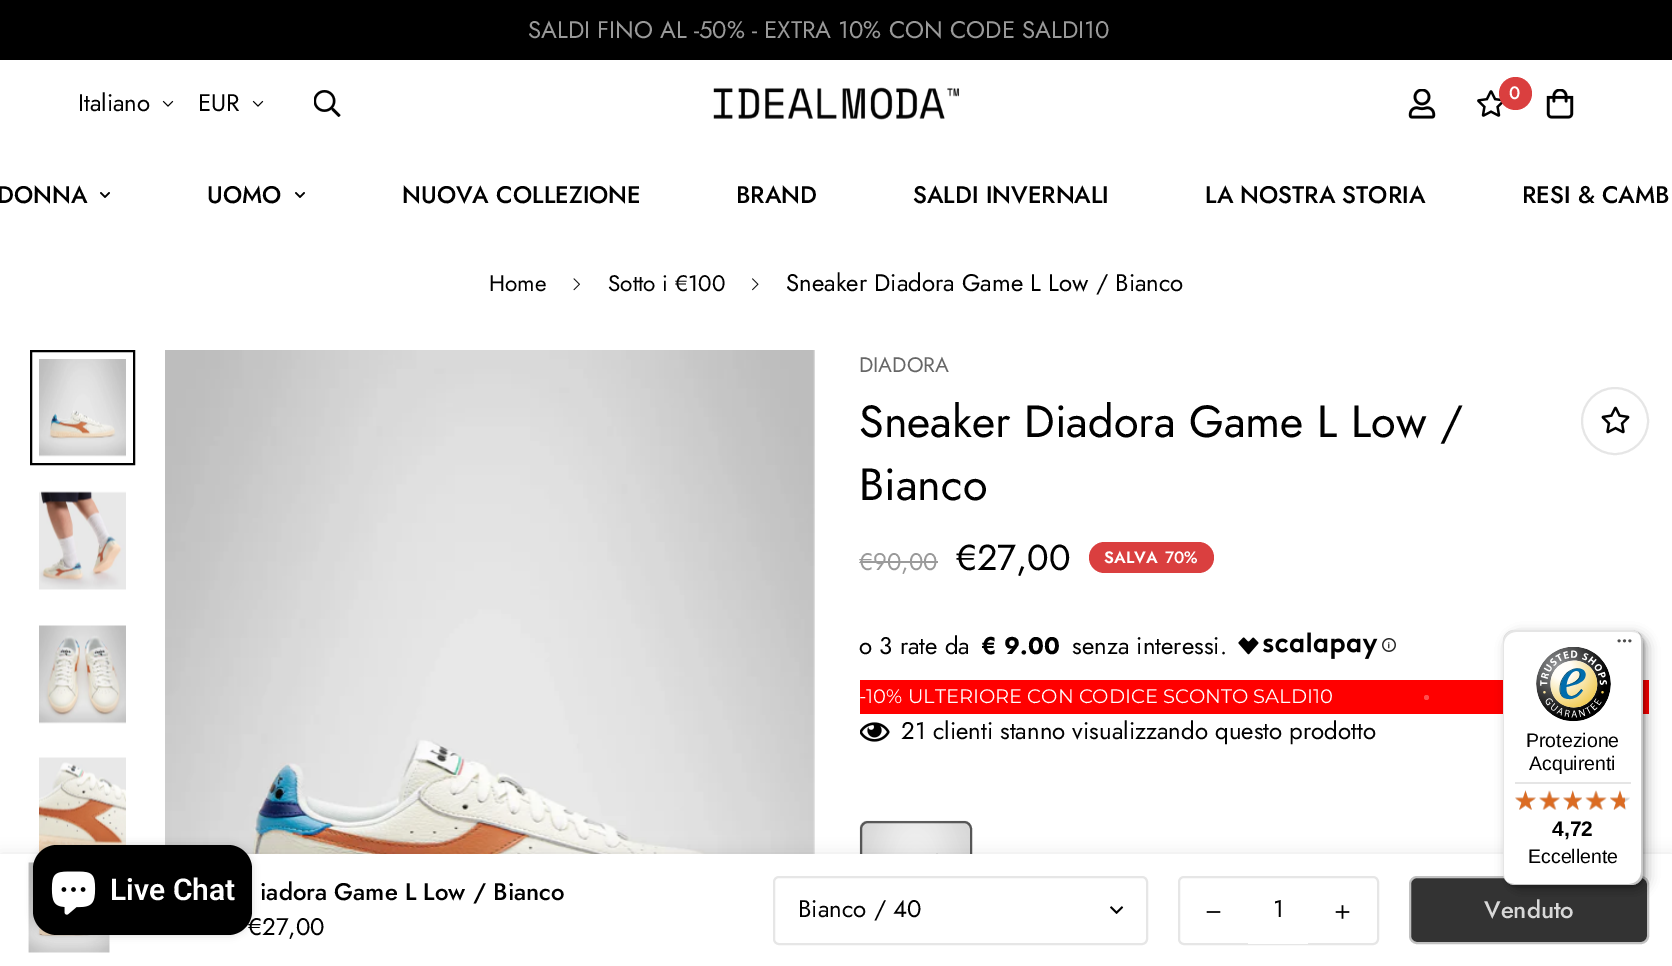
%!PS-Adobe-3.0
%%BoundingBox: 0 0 1672 966
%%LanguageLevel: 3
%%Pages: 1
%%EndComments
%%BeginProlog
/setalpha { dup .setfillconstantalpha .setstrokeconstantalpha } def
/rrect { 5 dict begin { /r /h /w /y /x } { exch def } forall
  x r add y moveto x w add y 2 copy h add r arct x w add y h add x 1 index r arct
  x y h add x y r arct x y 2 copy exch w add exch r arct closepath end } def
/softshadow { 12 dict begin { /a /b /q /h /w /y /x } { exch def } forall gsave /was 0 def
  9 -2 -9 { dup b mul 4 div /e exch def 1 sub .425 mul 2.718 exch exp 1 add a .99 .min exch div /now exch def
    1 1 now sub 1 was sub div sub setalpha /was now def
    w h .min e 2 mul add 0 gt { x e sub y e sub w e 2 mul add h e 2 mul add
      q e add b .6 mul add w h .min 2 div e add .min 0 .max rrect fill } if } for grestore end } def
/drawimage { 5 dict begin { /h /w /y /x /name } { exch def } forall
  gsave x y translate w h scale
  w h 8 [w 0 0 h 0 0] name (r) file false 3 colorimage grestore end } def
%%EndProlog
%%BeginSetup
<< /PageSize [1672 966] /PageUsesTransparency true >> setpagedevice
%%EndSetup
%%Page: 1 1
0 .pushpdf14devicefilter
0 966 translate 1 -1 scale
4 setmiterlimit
1 setgray
0 0 1672 966 rectfill
0 setgray
0 0 1672 60 rectfill
(images/1.raw) 162 100 12 7 drawimage
(images/1.raw) 252 100 12 7 drawimage
(images/2.raw) 314 90 27 27 drawimage
(images/3.raw) 713 87 247 33 drawimage
(images/4.raw) 1408 89 28 30 drawimage
(images/5.raw) 1477 90 26 27 drawimage
0.855 0.247 0.247 setrgbcolor
newpath 1515.5 93.5 16.5 0 360 arc closepath fill
(images/6.raw) 1546 89 28 30 drawimage
(images/7.raw) 100 192 10 6 drawimage
(images/7.raw) 295 192 10 6 drawimage
(images/8.raw) 573 278 7 13 drawimage
(images/9.raw) 752 278 7 13 drawimage
0 setgray
2 setlinewidth
31 351 103 113 rectstroke
(images/10.raw) 39 359 87 98 drawimage
(images/11.raw) 39 491 87 99 drawimage
(images/12.raw) 39 625 87 99 drawimage
(images/13.raw) 39 757 87 97 drawimage
(images/14.raw) 165 350 650 504 drawimage
0.902 setgray
newpath 1615 421 33 0 360 arc closepath stroke
(images/15.raw) 1601 406 29 28 drawimage
0.855 0.247 0.247 setrgbcolor
1089 542 125 31 15.5 rrect fill
(images/16.raw) 1238 632 140 27 drawimage
(images/17.raw) 1382 638 14 14 drawimage
1 0 0 setrgbcolor
860 680 789 34 rectfill
1 0.302 0.302 setrgbcolor
newpath 1426.5 697.5 2.5 0 360 arc closepath fill
(images/18.raw) 860 722 30 20 drawimage
(images/19.raw) 859 820 113 34 drawimage
0.6 setalpha
0 setgray
861 822 110 110 7 rrect stroke
0.741 setgray
newpath 892 898 moveto 937 853 lineto 938 854 lineto 893 899 lineto closepath fill
1 setalpha
0 setgray
0 854 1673 112 0 7.5 0.09 softshadow
1 setgray
0 854 1672 112 rectfill
(images/20.raw) 28 862 82 91 drawimage
(images/21.raw) 1110 906 14 8 drawimage
0.902 setgray
774 877 373 67 5 rrect stroke
1179 877 199 67 5 rrect stroke
(images/22.raw) 1206 911 15 2 drawimage
1 setgray
1248 943 60 1 rectfill
(images/23.raw) 1335 905 15 14 drawimage
0.2 setgray
1410 877 238 66 7 rrect gsave fill grestore
0.757 setgray
stroke
0 setgray
1508 635 139 255 12 6 0.15 softshadow
1505 632 139 255 12 1.5 0.15 softshadow
0.1 setalpha
newpath 1516 632 moveto 1632 632 lineto 1636 632 1640 634 1642 637 curveto 1640 633 1636 630 1631 630 curveto 1515 630 lineto 1508 630 1503 635 1503 642 curveto 1503 873 lineto 1503 877 1505 880 1507 882 curveto 1505 880 1504 877 1504 874 curveto 1504 644 lineto 1504 637 1510 632 1516 632 curveto closepath fill
0.2 setalpha
newpath 1506 881 moveto 1508 883 1511 885 1515 885 curveto 1631 885 lineto 1638 885 1643 880 1643 873 curveto 1643 642 lineto 1643 638 1641 635 1638 632 curveto 1640 635 1641 637 1641 640 curveto 1641 872 lineto 1641 878 1636 884 1629 884 curveto 1514 884 lineto 1511 884 1508 883 1506 881 curveto closepath fill
0.196 setgray
newpath 1507 882 moveto 1509 884 1512 885 1515 885 curveto 1631 885 lineto 1638 885 1643 880 1643 873 curveto 1643 642 lineto 1643 638 1641 635 1639 633 curveto 1641 635 1642 638 1642 641 curveto 1642 872 lineto 1642 879 1636 884 1630 884 curveto 1514 884 lineto 1511 884 1509 883 1507 882 curveto closepath fill
0.3 setalpha
1 setgray
newpath 1506 881 moveto 1508 883 1511 885 1515 885 curveto 1631 885 lineto 1638 885 1643 880 1643 873 curveto 1643 642 lineto 1643 637 1641 634 1637 632 curveto 1640 634 1642 637 1642 641 curveto 1642 872 lineto 1642 879 1636 884 1630 884 curveto 1514 884 lineto 1511 884 1508 883 1506 881 curveto closepath fill
1 setalpha
0 setgray
1508 635 139 255 12 6 0.15 softshadow
1505 632 139 255 12 1.5 0.15 softshadow
1 setgray
1503 630 140 255 12 rrect fill
0.1 setalpha
0 setgray
newpath 1516 632 moveto 1632 632 lineto 1636 632 1640 634 1642 637 curveto 1640 633 1636 630 1631 630 curveto 1515 630 lineto 1508 630 1503 635 1503 642 curveto 1503 873 lineto 1503 877 1505 880 1507 882 curveto 1505 880 1504 877 1504 874 curveto 1504 644 lineto 1504 637 1510 632 1516 632 curveto closepath fill
0.2 setalpha
newpath 1506 881 moveto 1508 883 1511 885 1515 885 curveto 1631 885 lineto 1638 885 1643 880 1643 873 curveto 1643 642 lineto 1643 638 1641 635 1638 632 curveto 1640 635 1641 637 1641 640 curveto 1641 872 lineto 1641 878 1636 884 1629 884 curveto 1514 884 lineto 1511 884 1508 883 1506 881 curveto closepath fill
0.196 setgray
newpath 1507 882 moveto 1509 884 1512 885 1515 885 curveto 1631 885 lineto 1638 885 1643 880 1643 873 curveto 1643 642 lineto 1643 638 1641 635 1639 633 curveto 1641 635 1642 638 1642 641 curveto 1642 872 lineto 1642 879 1636 884 1630 884 curveto 1514 884 lineto 1511 884 1509 883 1507 882 curveto closepath fill
0.3 setalpha
1 setgray
newpath 1506 881 moveto 1508 883 1511 885 1515 885 curveto 1631 885 lineto 1638 885 1643 880 1643 873 curveto 1643 642 lineto 1643 637 1641 634 1637 632 curveto 1640 634 1642 637 1642 641 curveto 1642 872 lineto 1642 879 1636 884 1630 884 curveto 1514 884 lineto 1511 884 1508 883 1506 881 curveto closepath fill
1 setalpha
(images/24.raw) 1617 639 15 4 drawimage
(images/25.raw) 1536 647 75 75 drawimage
0.898 setgray
1515 782 116 2 rectfill
(images/26.raw) 1515 790 21 20 drawimage
(images/27.raw) 1539 791 21 19 drawimage
(images/28.raw) 1563 790 19 20 drawimage
(images/29.raw) 1586 791 20 19 drawimage
(images/30.raw) 1610 790 20 20 drawimage
(images/31.raw) 1515 790 21 20 drawimage
(images/32.raw) 1539 790 21 20 drawimage
(images/33.raw) 1563 790 19 20 drawimage
(images/34.raw) 1585 790 22 20 drawimage
(images/35.raw) 1610 790 15 20 drawimage
0 setgray
33 845 219 90 24 4 0.15 softshadow
33 845 219 90 24 rrect fill
(images/36.raw) 51 871 45 44 drawimage
/Jost-Regular [24 0 0 -24 0 0] selectfont
0.6 setgray
528 38 moveto (SALDI FINO AL -50% - EXTRA 10% CON CODE SALDI10) show
0 setgray
78 111 moveto (Italiano) show
198 111 moveto (EUR) show
/Jost-Medium [18 0 0 -18 0 0] selectfont
1 setgray
1509 99 moveto (0) show
/Jost-Medium [24 0 0 -24 0 0] selectfont
0 setgray
-3 203 moveto (DONNA) show
207 203 moveto (UOMO) show
402 203 moveto (NUOVA COLLEZIONE) show
736 203 moveto (BRAND) show
913 203 moveto (SALDI INVERNALI) show
1205 203 moveto (LA NOSTRA STORIA) show
1522 203 moveto (RESI & CAMB) show
/Jost-Regular [22.5 0 0 -22.5 0 0] selectfont
489 291 moveto (Home) show
608 291 moveto (Sotto i €100) show
/Jost-Regular [24 0 0 -24 0 0] selectfont
786 291 moveto (Sneaker Diadora Game L Low / Bianco) show
/Jost-Regular [21 0 0 -21 0 0] selectfont
0.4 setgray
859 372 moveto (DIADORA) show
/Jost-Regular [45 0 0 -45 0 0] selectfont
0 setgray
859 437 moveto (Sneaker Diadora Game L Low /) show
859 500 moveto (Bianco) show
/Jost-Regular [24 0 0 -24 0 0] selectfont
0.6 setgray
859 570 moveto (€90,00) show
0.608 setgray
860 561 78 2 rectfill
/Jost-Regular [36 0 0 -36 0 0] selectfont
0 setgray
956 570 moveto (€27,00) show
/Jost-SemiBold [16.5 0 0 -16.5 0 0] selectfont
1 setgray
1104 563 moveto (SALVA) show
/Jost-Medium [16.5 0 0 -16.5 0 0] selectfont
1165 563 moveto (70%) show
/Jost-Regular [24 0 0 -24 0 0] selectfont
0 setgray
859 654 moveto (o 3 rate da) show
/Jost-Bold [24 0 0 -24 0 0] selectfont
981 654 moveto (€ 9.00) show
/Jost-Regular [24 0 0 -24 0 0] selectfont
1072 654 moveto (senza interessi.) show
/Montserrat-Regular [19.5 0 0 -19.5 0 0] selectfont
1 setgray
859 703 moveto (-10% ULTERIORE CON CODICE SCONTO SALDI10) show
/Jost-Regular [24 0 0 -24 0 0] selectfont
0 setgray
901 739 moveto (21 clienti stanno visualizzando questo prodotto) show
/Jost-Medium [24 0 0 -24 0 0] selectfont
260 900 moveto (iadora Game L Low / Bianco) show
/Jost-Regular [24 0 0 -24 0 0] selectfont
248 935 moveto (€27,00) show
798 917 moveto (Bianco / 40) show
1273 917 moveto (1) show
/Jost-Medium [24 0 0 -24 0 0] selectfont
0.847 setgray
1484 918 moveto (Venduto) show
/LiberationSans-Regular [19.5 0 0 -19.5 0 0] selectfont
0 setgray
1526 747 moveto (Protezione) show
1529 770 moveto (Acquirenti) show
/LiberationSans-Bold [21 0 0 -21 0 0] selectfont
1552 836 moveto (4,72) show
/LiberationSans-Regular [19.5 0 0 -19.5 0 0] selectfont
1528 863 moveto (Eccellente) show
/Roboto-SemiBold [30 0 0 -30 0 0] selectfont
1 setgray
110 900 moveto (Live Chat) show
.poppdf14devicefilter showpage
%%EOF
